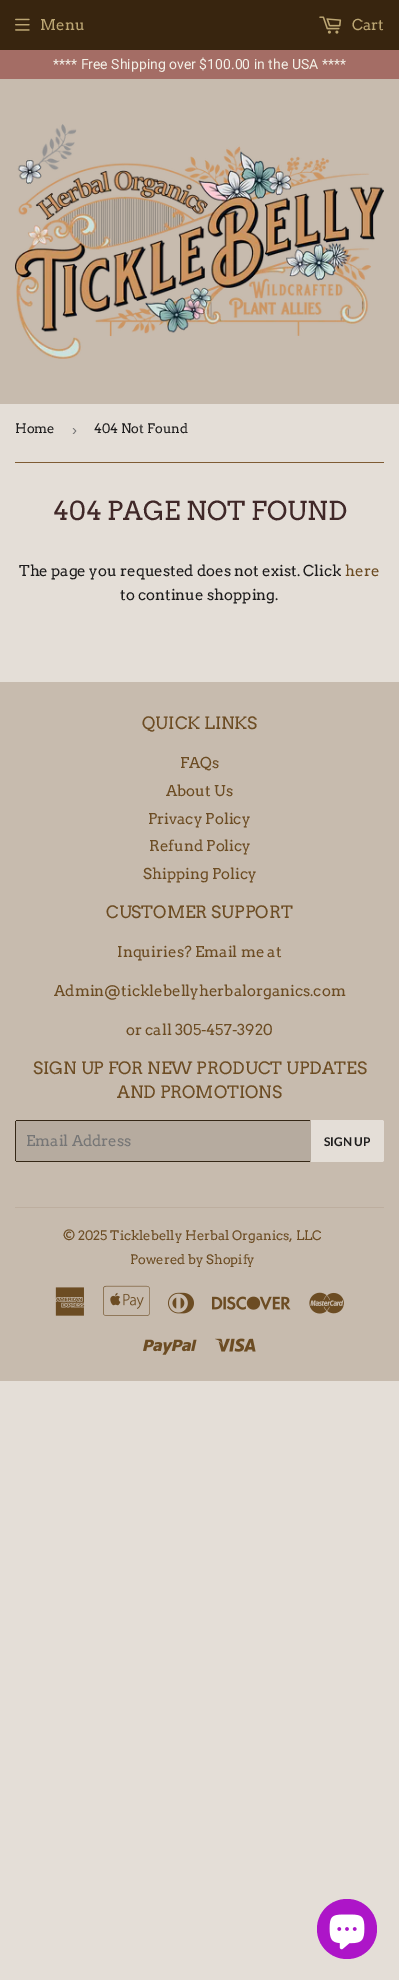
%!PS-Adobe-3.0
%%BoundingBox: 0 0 399 1980
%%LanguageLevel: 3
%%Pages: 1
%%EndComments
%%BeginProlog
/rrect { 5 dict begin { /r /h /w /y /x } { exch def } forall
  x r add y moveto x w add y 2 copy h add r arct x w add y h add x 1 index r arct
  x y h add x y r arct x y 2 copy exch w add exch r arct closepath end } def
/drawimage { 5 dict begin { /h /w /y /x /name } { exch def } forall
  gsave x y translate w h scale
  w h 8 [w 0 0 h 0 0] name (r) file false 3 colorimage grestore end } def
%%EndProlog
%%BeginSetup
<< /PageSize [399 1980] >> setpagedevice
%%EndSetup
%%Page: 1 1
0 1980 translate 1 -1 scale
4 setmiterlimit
0.894 0.871 0.843 setrgbcolor
0 0 399 1980 rectfill
0.22 0.145 0.059 setrgbcolor
0 0 399 50 rectfill
(images/1.raw) 15 18 15 13 drawimage
(images/2.raw) 319 16 23 18 drawimage
0.643 0.427 0.396 setrgbcolor
0 50 399 29 rectfill
0.78 0.733 0.682 setrgbcolor
0 79 399 325 rectfill
(images/3.raw) 15 124 369 235 drawimage
0.494 0.357 0.2 setrgbcolor
15 462 369 1 rectfill
0.78 0.733 0.682 setrgbcolor
0 682 399 699 rectfill
0.714 0.671 0.624 setrgbcolor
15 1120 296 42 2 rrect fill
0.208 0.153 0.086 setrgbcolor
16 1120 294 1 rectfill
16 1161 294 1 rectfill
15 1121 1 40 rectfill
0.894 0.871 0.843 setrgbcolor
newpath 311 1120 moveto 382 1120 lineto 383 1120 384 1121 384 1122 curveto 384 1160 lineto 384 1161 383 1162 382 1162 curveto 311 1162 lineto closepath fill
0.741 0.682 0.624 setrgbcolor
15 1207 369 1 rectfill
(images/4.raw) 55 1287 30 29 drawimage
(images/5.raw) 103 1285 47 31 drawimage
(images/6.raw) 168 1292 26 22 drawimage
(images/7.raw) 212 1296 79 14 drawimage
(images/8.raw) 309 1292 35 22 drawimage
(images/9.raw) 143 1339 54 16 drawimage
(images/10.raw) 215 1338 41 14 drawimage
0.678 0.082 0.784 setrgbcolor
newpath 347 1929 30 0 360 arc closepath fill
(images/11.raw) 329 1914 36 36 drawimage
/Arvo-Regular [15 0 0 -15 0 0] selectfont
0.737 0.651 0.451 setrgbcolor
40 30 moveto (Menu) show
352 30 moveto (Cart) show
/Roboto-Regular [14 0 0 -14 0 0] selectfont
0.953 0.941 0.906 setrgbcolor
53 69 moveto (**** Free Shipping over $100.00 in the USA ****) show
/Arvo-Regular [13 0 0 -13 0 0] selectfont
0.118 0.114 0.114 setrgbcolor
15 433 moveto (Home) show
/LiberationSans-Regular [15 0 0 -15 0 0] selectfont
0.463 setgray
72 435 moveto (›) show
/Arvo-Regular [13 0 0 -13 0 0] selectfont
0.118 0.114 0.114 setrgbcolor
94 433 moveto (404 Not Found) show
/Arvo-Regular [26 0 0 -26 0 0] selectfont
0.251 0.157 0.157 setrgbcolor
53 520 moveto (404 PAGE NOT FOUND) show
/Arvo-Regular [15 0 0 -15 0 0] selectfont
0.118 0.114 0.114 setrgbcolor
19 576 moveto (The page you requested does not exist. Click) show
0.424 0.298 0.137 setrgbcolor
345 576 moveto (here) show
0.118 0.114 0.114 setrgbcolor
120 600 moveto (to continue shopping.) show
/Arvo-Regular [17 0 0 -17 0 0] selectfont
0.424 0.298 0.137 setrgbcolor
142 729 moveto (QUICK LINKS) show
/Arvo-Regular [15 0 0 -15 0 0] selectfont
180 768 moveto (FAQs) show
166 796 moveto (About Us) show
148 824 moveto (Privacy Policy) show
149 851 moveto (Refund Policy) show
143 879 moveto (Shipping Policy) show
/Arvo-Regular [17 0 0 -17 0 0] selectfont
106 918 moveto (CUSTOMER SUPPORT) show
/Arvo-Regular [15 0 0 -15 0 0] selectfont
117 957 moveto (Inquiries? Email me at) show
54 996 moveto (Admin@ticklebellyherbalorganics.com) show
126 1035 moveto (or call 305-457-3920) show
/Arvo-Regular [17 0 0 -17 0 0] selectfont
33 1074 moveto (SIGN UP FOR NEW PRODUCT UPDATES) show
117 1098 moveto (AND PROMOTIONS) show
/Arvo-Regular [15 0 0 -15 0 0] selectfont
0.463 setgray
26 1146 moveto (Email Address) show
/Lato-Bold [12 0 0 -12 0 0] selectfont
0.118 0.114 0.114 setrgbcolor
324 1146 moveto (SIGN UP) show
/Arvo-Regular [13 0 0 -13 0 0] selectfont
0.424 0.298 0.137 setrgbcolor
63 1240 moveto (© 2025 Ticklebelly Herbal Organics, LLC) show
130 1264 moveto (Powered by Shopify) show
showpage
%%EOF
